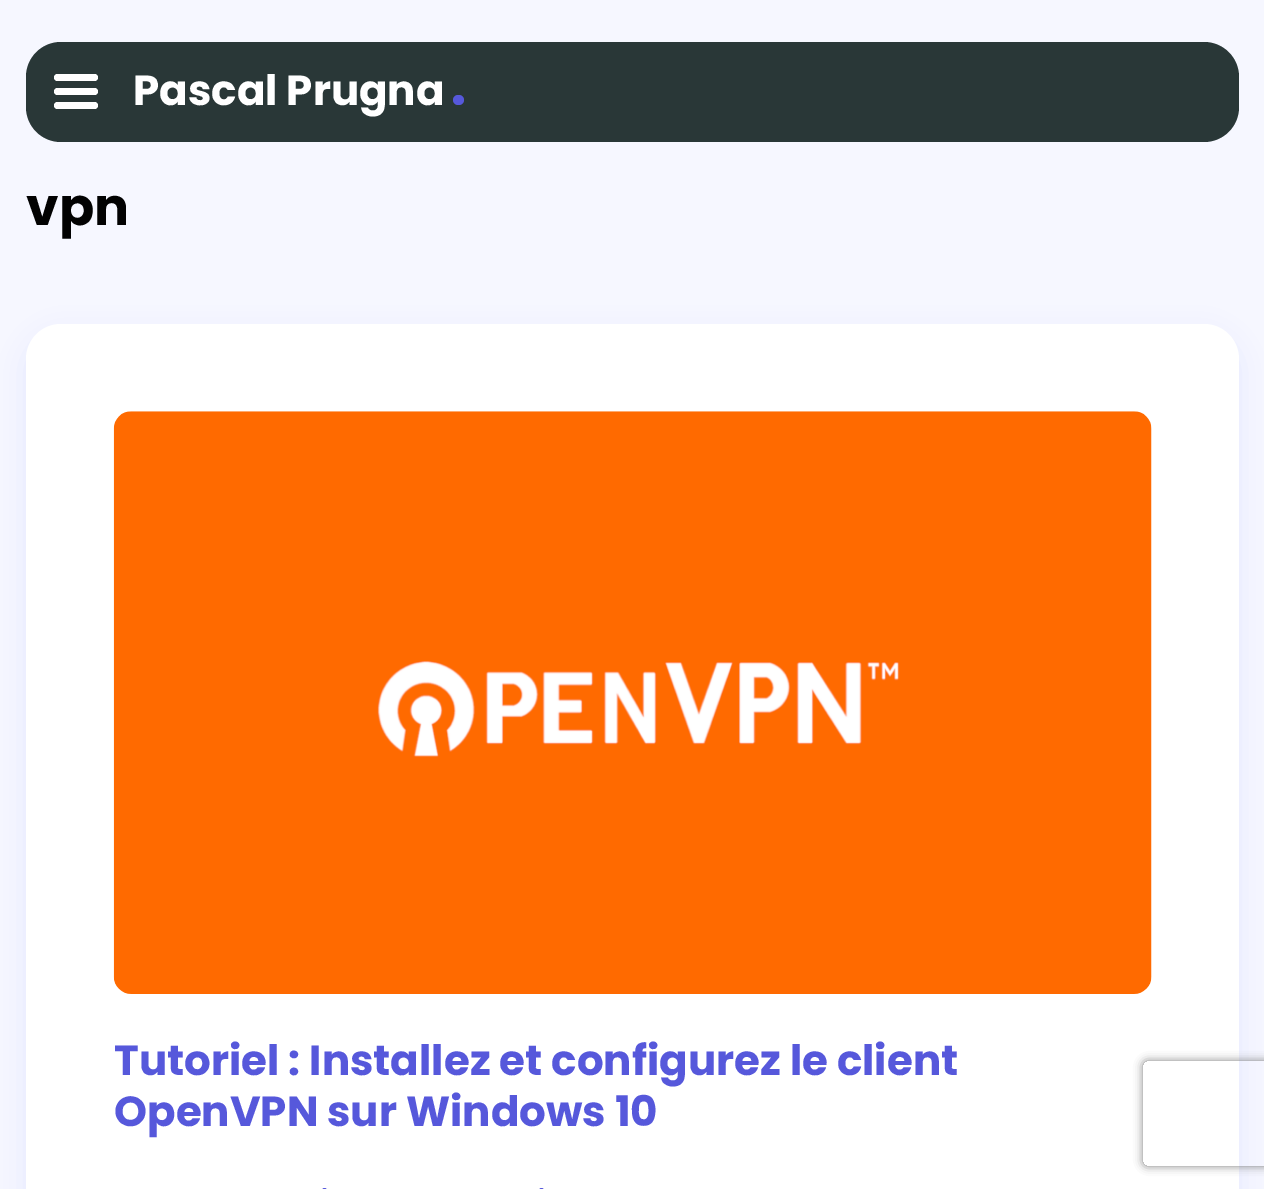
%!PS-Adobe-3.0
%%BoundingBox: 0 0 1264 1189
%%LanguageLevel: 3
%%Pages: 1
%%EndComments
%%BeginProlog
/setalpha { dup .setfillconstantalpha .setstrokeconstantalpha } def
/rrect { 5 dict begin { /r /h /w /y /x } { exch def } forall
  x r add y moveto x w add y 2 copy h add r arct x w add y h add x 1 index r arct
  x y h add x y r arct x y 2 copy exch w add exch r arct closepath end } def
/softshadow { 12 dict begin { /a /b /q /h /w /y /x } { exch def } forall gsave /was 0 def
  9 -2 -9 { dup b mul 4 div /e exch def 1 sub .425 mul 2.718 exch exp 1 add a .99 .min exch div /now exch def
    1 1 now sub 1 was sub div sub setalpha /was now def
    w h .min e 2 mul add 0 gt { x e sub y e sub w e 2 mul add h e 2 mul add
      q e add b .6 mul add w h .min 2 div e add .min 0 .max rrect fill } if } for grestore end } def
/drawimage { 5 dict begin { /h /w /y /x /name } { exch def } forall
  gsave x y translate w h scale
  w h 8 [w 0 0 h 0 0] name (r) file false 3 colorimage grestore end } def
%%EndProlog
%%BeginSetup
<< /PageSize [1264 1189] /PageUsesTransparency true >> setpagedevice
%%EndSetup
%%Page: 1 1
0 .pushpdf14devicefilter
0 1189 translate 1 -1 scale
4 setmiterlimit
0.965 0.969 1 setrgbcolor
0 0 1264 1189 rectfill
0.161 0.216 0.216 setrgbcolor
26 42 1213 100 35 rrect fill
1 setgray
54 74 44 7 3.5 rrect fill
54 88 44 7 3.5 rrect fill
54 102 44 7 3.5 rrect fill
0.337 0.345 0.859 setrgbcolor
453 95 11 10 5 rrect fill
0.29 0.388 0.906 setrgbcolor
26 334 1213 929 35 13 0.1 softshadow
1 setgray
26 324 1213 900 35 rrect fill
(images/1.raw) 113 411 1039 583 drawimage
0.337 0.345 0.859 setrgbcolor
322 1188 5 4 2.5 rrect fill
539 1188 5 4 2.5 rrect fill
gsave
newpath 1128 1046 moveto 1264 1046 lineto 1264 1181 lineto 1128 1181 lineto closepath 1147 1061 moveto 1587 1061 lineto 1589 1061 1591 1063 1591 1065 curveto 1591 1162 lineto 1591 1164 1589 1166 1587 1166 curveto 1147 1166 lineto 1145 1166 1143 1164 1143 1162 curveto 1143 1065 lineto 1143 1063 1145 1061 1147 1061 curveto closepath eoclip newpath
0.502 setgray
1143 1061 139 105 4 4.5 1 softshadow
grestore
/Poppins-Bold [42 0 0 -42 0 0] selectfont
1 setgray
133 105 moveto (Pascal Prugna) show
/Poppins-Bold [52 0 0 -52 0 0] selectfont
0.008 setgray
26 225 moveto (vpn) show
/Poppins-Bold [42 0 0 -42 0 0] selectfont
0.337 0.345 0.859 setrgbcolor
114 1075 moveto (Tutoriel : Installez et configurez le client) show
114 1126 moveto (OpenVPN sur Windows 10) show
.poppdf14devicefilter showpage
%%EOF
